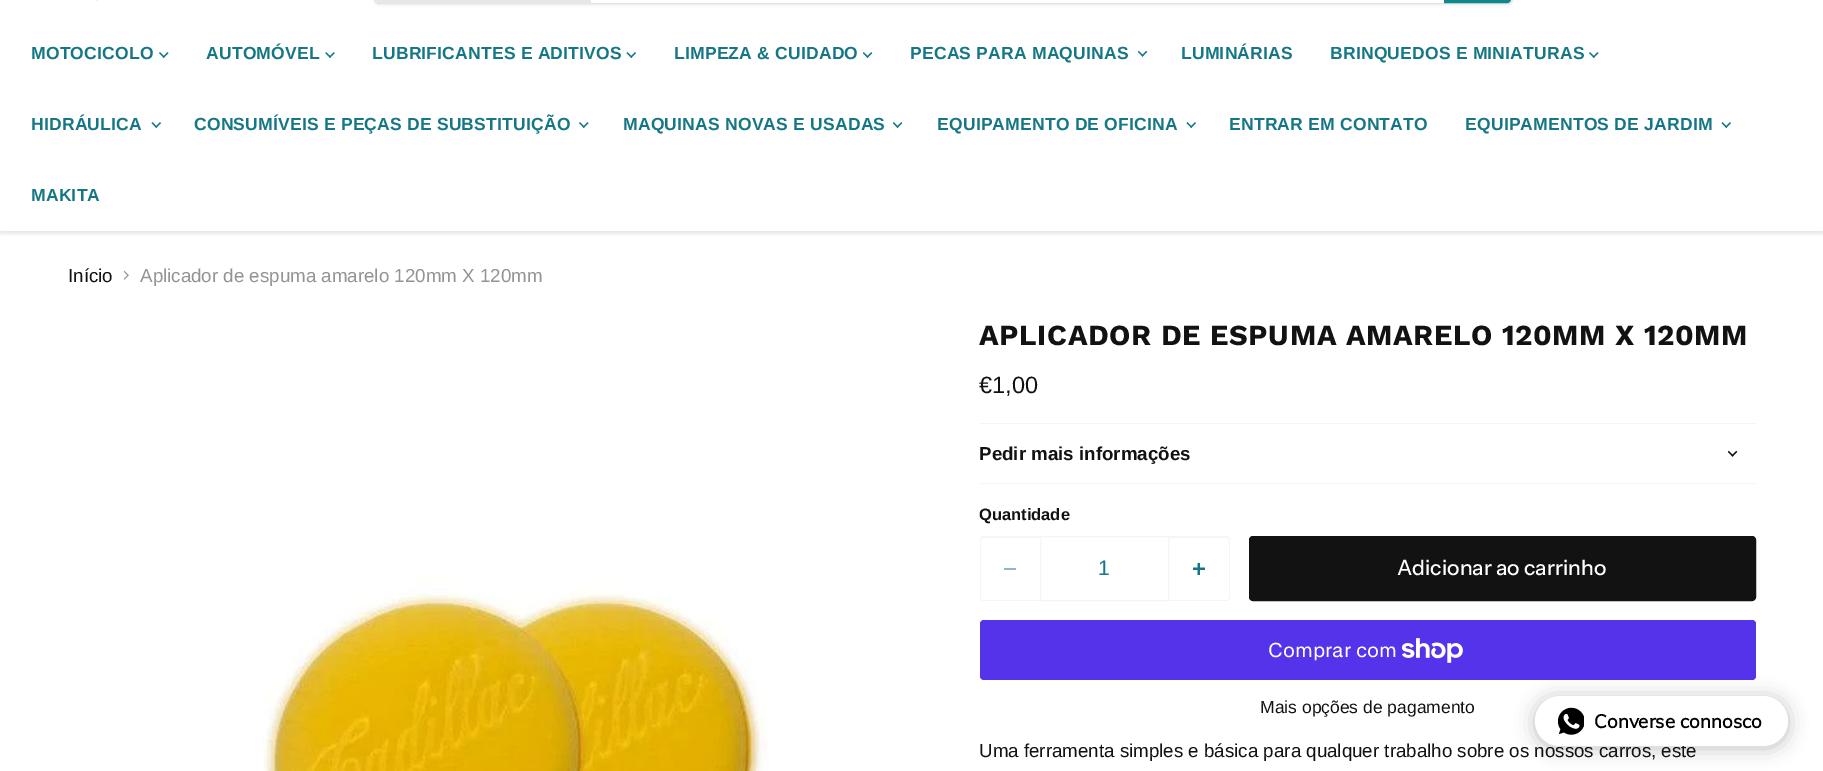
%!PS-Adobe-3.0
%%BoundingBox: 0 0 1823 771
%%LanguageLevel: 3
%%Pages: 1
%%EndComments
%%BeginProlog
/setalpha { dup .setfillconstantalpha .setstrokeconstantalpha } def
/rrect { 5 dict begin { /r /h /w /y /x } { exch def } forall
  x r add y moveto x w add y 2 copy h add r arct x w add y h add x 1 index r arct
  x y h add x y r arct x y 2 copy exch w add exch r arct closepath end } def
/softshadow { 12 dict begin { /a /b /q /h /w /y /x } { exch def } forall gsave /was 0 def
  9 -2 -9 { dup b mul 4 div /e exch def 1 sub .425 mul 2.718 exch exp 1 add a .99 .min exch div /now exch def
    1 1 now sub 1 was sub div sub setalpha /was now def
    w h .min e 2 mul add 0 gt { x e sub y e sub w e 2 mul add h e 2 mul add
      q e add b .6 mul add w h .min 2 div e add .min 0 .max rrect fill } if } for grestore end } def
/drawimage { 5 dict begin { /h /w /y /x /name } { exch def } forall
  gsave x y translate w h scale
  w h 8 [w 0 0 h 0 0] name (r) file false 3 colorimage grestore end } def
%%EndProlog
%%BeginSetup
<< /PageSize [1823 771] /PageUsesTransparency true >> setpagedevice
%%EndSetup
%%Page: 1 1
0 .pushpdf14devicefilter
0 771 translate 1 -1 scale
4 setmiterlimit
1 setgray
0 0 1823 771 rectfill
gsave
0 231 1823 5 rectclip
0.502 setgray
0 -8 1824 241 0 2.5 0.25 softshadow
grestore
(images/1.raw) 96 0 2 1 drawimage
gsave
newpath 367 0 moveto 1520 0 lineto 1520 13 lineto 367 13 lineto closepath 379 -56 moveto 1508 -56 lineto 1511 -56 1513 -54 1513 -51 curveto 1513 -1 lineto 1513 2 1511 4 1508 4 curveto 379 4 lineto 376 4 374 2 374 -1 curveto 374 -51 lineto 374 -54 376 -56 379 -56 curveto closepath eoclip newpath
0.502 setgray
374 -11 1139 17 5 2 0.11 softshadow
grestore
0.2 setalpha
0.502 setgray
374.5 -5.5 1138 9 4.5 rrect stroke
1 setalpha
0.906 setgray
newpath 379 -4 moveto 591 -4 lineto 591 3 lineto 379 3 lineto 377 3 375 1 375 -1 curveto 375 0 lineto 375 -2 377 -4 379 -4 curveto closepath fill
0.063 0.537 0.557 setrgbcolor
newpath 1444.5 -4.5 moveto 1507 -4.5 lineto 1509 -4.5 1510.5 -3 1510.5 -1 curveto 1510.5 1 1509 2.5 1507 2.5 curveto 1444.5 2.5 lineto closepath gsave fill grestore
stroke
(images/2.raw) 159 52 10 6 drawimage
(images/3.raw) 325 52 10 6 drawimage
(images/4.raw) 626 52 10 6 drawimage
(images/5.raw) 863 52 10 6 drawimage
(images/6.raw) 1138 50 10 7 drawimage
(images/2.raw) 1589 52 10 6 drawimage
(images/4.raw) 151 122 10 6 drawimage
(images/2.raw) 579 122 10 6 drawimage
(images/5.raw) 893 122 10 6 drawimage
(images/4.raw) 1186 122 10 6 drawimage
(images/4.raw) 1721 122 10 6 drawimage
(images/7.raw) 123 270 6 10 drawimage
(images/8.raw) 262 578 507 193 drawimage
0.961 setgray
980 423 776 1 rectfill
980 483 776 1 rectfill
(images/9.raw) 1728 450 10 7 drawimage
newpath 984 536 moveto 1040 536 lineto 1040 601 lineto 984 601 lineto 982 601 980 600 980 598 curveto 980 540 lineto 980 538 982 536 984 536 curveto closepath 984 538 moveto 1040 538 lineto 1040 600 lineto 984 600 lineto 982 600 981 599 981 598 curveto 981 540 lineto 981 539 982 538 984 538 curveto closepath eofill
0.541 0.733 0.761 setrgbcolor
1004 568 12 2 rectfill
0.961 setgray
1040.5 536.5 128 64 rectstroke
newpath 1169 536 moveto 1226 536 lineto 1228 536 1230 538 1230 540 curveto 1230 598 lineto 1230 600 1228 601 1226 601 curveto 1169 601 lineto closepath 1169 538 moveto 1226 538 lineto 1228 538 1229 539 1229 540 curveto 1229 598 lineto 1229 599 1228 600 1226 600 curveto 1169 600 lineto closepath eofill
(images/10.raw) 1193 563 12 12 drawimage
0.071 setgray
1249.5 536.5 506 64 3.5 rrect gsave fill grestore
stroke
0.329 0.2 0.922 setrgbcolor
980 620 776 60 4 rrect fill
(images/11.raw) 1401 638 62 25 drawimage
0.125 0.129 0.141 setrgbcolor
1535 698 253 50 25 9.5 0.28 softshadow
/LiberationSans-Bold [17.5 0 0 -17.5 0 0] selectfont
0.082 0.467 0.522 setrgbcolor
31 59 moveto 0.2 0 (MOTOCICOLO) ashow
206 59 moveto 0.2 0 (AUTOMÓVEL) ashow
372 59 moveto 0.2 0 (LUBRIFICANTES E ADITIVOS) ashow
674 59 moveto 0.2 0 (LIMPEZA & CUIDADO) ashow
910 59 moveto 0.2 0 (PECAS PARA MAQUINAS) ashow
1181 59 moveto 0.2 0 (LUMINÁRIAS) ashow
1330 59 moveto 0.2 0 (BRINQUEDOS E MINIATURAS) ashow
31 130 moveto 0.2 0 (HIDRÁULICA) ashow
194 130 moveto 0.2 0 (CONSUMÍVEIS E PEÇAS DE SUBSTITUIÇÃO) ashow
623 130 moveto 0.2 0 (MAQUINAS NOVAS E USADAS) ashow
937 130 moveto 0.2 0 (EQUIPAMENTO DE OFICINA) ashow
1229 130 moveto 0.2 0 (ENTRAR EM CONTATO) ashow
1465 130 moveto 0.2 0 (EQUIPAMENTOS DE JARDIM) ashow
31 201 moveto 0.2 0 (MAKITA) ashow
/LiberationSans-Regular [18.75 0 0 -18.75 0 0] selectfont
0.071 setgray
68 282 moveto (Início) show
0.58 setgray
140 282 moveto (Aplicador de espuma amarelo 120mm X 120mm) show
/WorkSans-Bold [29.05 0 0 -29.05 0 0] selectfont
0.071 setgray
979 345 moveto 0.6 0 (APLICADOR DE ESPUMA AMARELO 120MM X 120MM) ashow
/LiberationSans-Regular [23.5 0 0 -23.5 0 0] selectfont
979 393 moveto (€1,00) show
/LiberationSans-Bold [18.75 0 0 -18.75 0 0] selectfont
979 460 moveto (Pedir mais informações) show
/LiberationSans-Bold [16.5 0 0 -16.5 0 0] selectfont
979 520 moveto (Quantidade) show
/LiberationSans-Regular [21 0 0 -21 0 0] selectfont
0.082 0.467 0.522 setrgbcolor
1098 575 moveto (1) show
/InstrumentSans-Medium [21 0 0 -21 0 0] selectfont
1 setgray
1397 575 moveto (Adicionar ao carrinho) show
/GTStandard-Regular [20 0 0 -20 0 0] selectfont
1268 657 moveto (Comprar com) show
/LiberationSans-Regular [17.5 0 0 -17.5 0 0] selectfont
0.071 setgray
1260 713 moveto (Mais opções de pagamento) show
/LiberationSans-Regular [18.75 0 0 -18.75 0 0] selectfont
979 757 moveto (Uma ferramenta simples e básica para qualquer trabalho sobre os nossos carros, este) show
1 setgray
1535 696 253 50 25 rrect fill
(images/12.raw) 1558 707 26 28 drawimage
/Muli-Bold [18.75 0 0 -18.75 0 0] selectfont
0 setgray
1594 728 moveto (Converse connosco) show
.poppdf14devicefilter showpage
%%EOF
